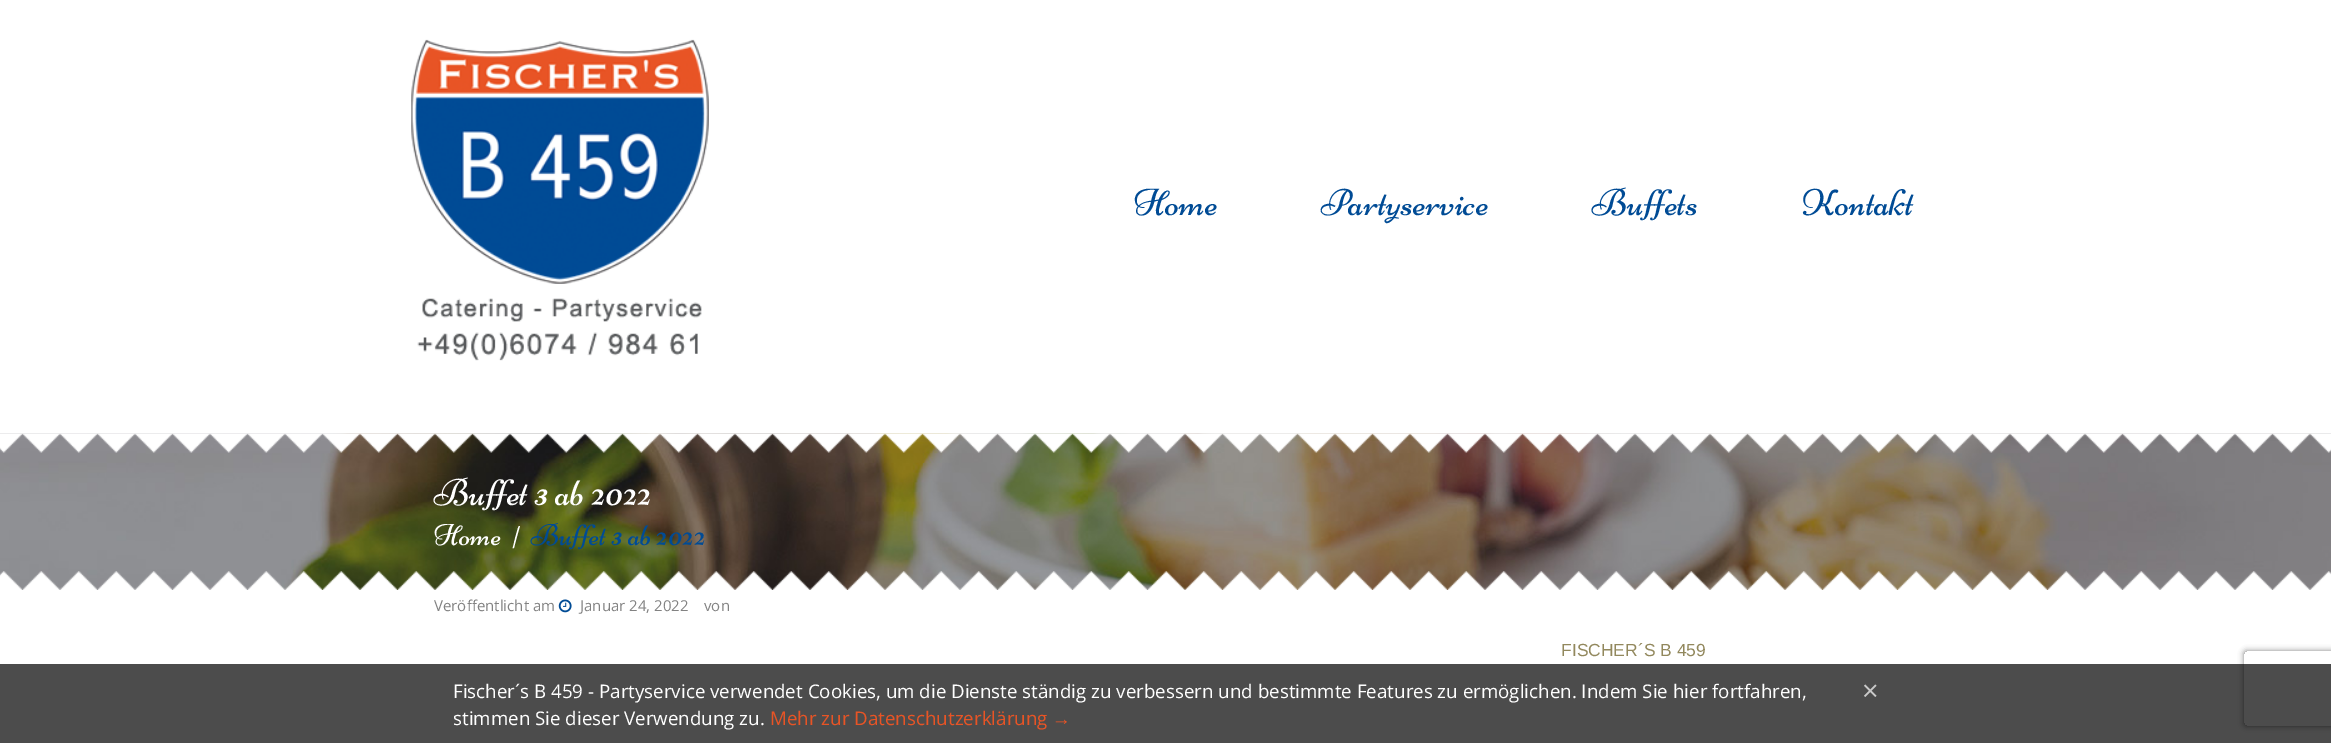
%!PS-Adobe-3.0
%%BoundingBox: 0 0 2331 743
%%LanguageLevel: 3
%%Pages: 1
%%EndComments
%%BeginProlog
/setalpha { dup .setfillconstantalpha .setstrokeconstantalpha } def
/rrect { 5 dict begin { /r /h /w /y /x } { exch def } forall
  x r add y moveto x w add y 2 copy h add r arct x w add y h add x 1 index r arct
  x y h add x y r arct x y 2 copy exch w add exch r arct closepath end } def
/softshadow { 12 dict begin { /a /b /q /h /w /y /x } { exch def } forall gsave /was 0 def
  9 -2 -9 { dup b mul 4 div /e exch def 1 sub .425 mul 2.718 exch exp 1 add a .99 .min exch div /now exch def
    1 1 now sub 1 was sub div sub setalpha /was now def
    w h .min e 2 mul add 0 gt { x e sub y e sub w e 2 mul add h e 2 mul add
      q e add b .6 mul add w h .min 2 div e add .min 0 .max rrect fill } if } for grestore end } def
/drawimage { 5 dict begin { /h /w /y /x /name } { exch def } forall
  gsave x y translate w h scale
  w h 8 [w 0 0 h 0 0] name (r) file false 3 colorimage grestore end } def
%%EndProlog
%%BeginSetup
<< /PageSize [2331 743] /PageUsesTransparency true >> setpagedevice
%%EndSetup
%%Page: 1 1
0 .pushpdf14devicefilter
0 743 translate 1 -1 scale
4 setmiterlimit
1 setgray
0 0 2331 743 rectfill
(images/1.raw) 411 39 298 322 drawimage
(images/2.raw) 0 433 2331 157 drawimage
(images/3.raw) 0 433 2331 20 drawimage
(images/4.raw) 0 571 2331 19 drawimage
(images/5.raw) 558 599 14 14 drawimage
gsave
newpath 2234 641 moveto 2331 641 lineto 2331 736 lineto 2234 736 lineto closepath 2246.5 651 moveto 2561.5 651 lineto 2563 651 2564 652 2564 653.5 curveto 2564 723.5 lineto 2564 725 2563 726 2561.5 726 curveto 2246.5 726 lineto 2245 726 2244 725 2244 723.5 curveto 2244 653.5 lineto 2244 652 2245 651 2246.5 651 curveto closepath eoclip newpath
0.502 setgray
2244 651 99 75 2.5 3 1 softshadow
grestore
0.7 setalpha
0 setgray
0 664 2331 79 rectfill
/Niconne-Regular [37.5 0 0 -37.5 0 0] selectfont
1 setalpha
0 0.294 0.584 setrgbcolor
1134 215 moveto (Home) show
1321 215 moveto (Partyservice) show
1592 215 moveto (Buffets) show
1802 215 moveto (Kontakt) show
1 setgray
434 505 moveto (Buffet 3 ab 2022) show
/Niconne-Regular [30 0 0 -30 0 0] selectfont
434 545 moveto (Home) show
512 548 moveto (|) show
0 0.294 0.584 setrgbcolor
531 545 moveto (Buffet 3 ab 2022) show
/OpenSans-Regular [15 0 0 -15 0 0] selectfont
0.51 setgray
434 611 moveto (Veröffentlicht am) show
580 611 moveto (Januar 24, 2022) show
704 611 moveto (von) show
/LiberationSans-Regular [17.5 0 0 -17.5 0 0] selectfont
0.573 0.533 0.365 setrgbcolor
1561 656 moveto (FISCHER´S B 459) show
/OpenSans-Regular [18.75 0 0 -18.75 0 0] selectfont
1 setgray
453 698 moveto (Fischer´s B 459 - Partyservice verwendet Cookies, um die Dienste ständig zu verbessern und bestimmte Features zu ermöglichen. Indem Sie hier fortfahren,) show
/OpenSans-Regular [29 0 0 -29 0 0] selectfont
0.788 setgray
1862 701 moveto (×) show
/OpenSans-Regular [18.75 0 0 -18.75 0 0] selectfont
1 setgray
453 725 moveto (stimmen Sie dieser Verwendung zu.) show
0.91 0.329 0.145 setrgbcolor
770 725 moveto (Mehr zur Datenschutzerklärung) show
/LiberationSans-Regular [18.75 0 0 -18.75 0 0] selectfont
1052 725 moveto (→) show
.poppdf14devicefilter showpage
%%EOF
